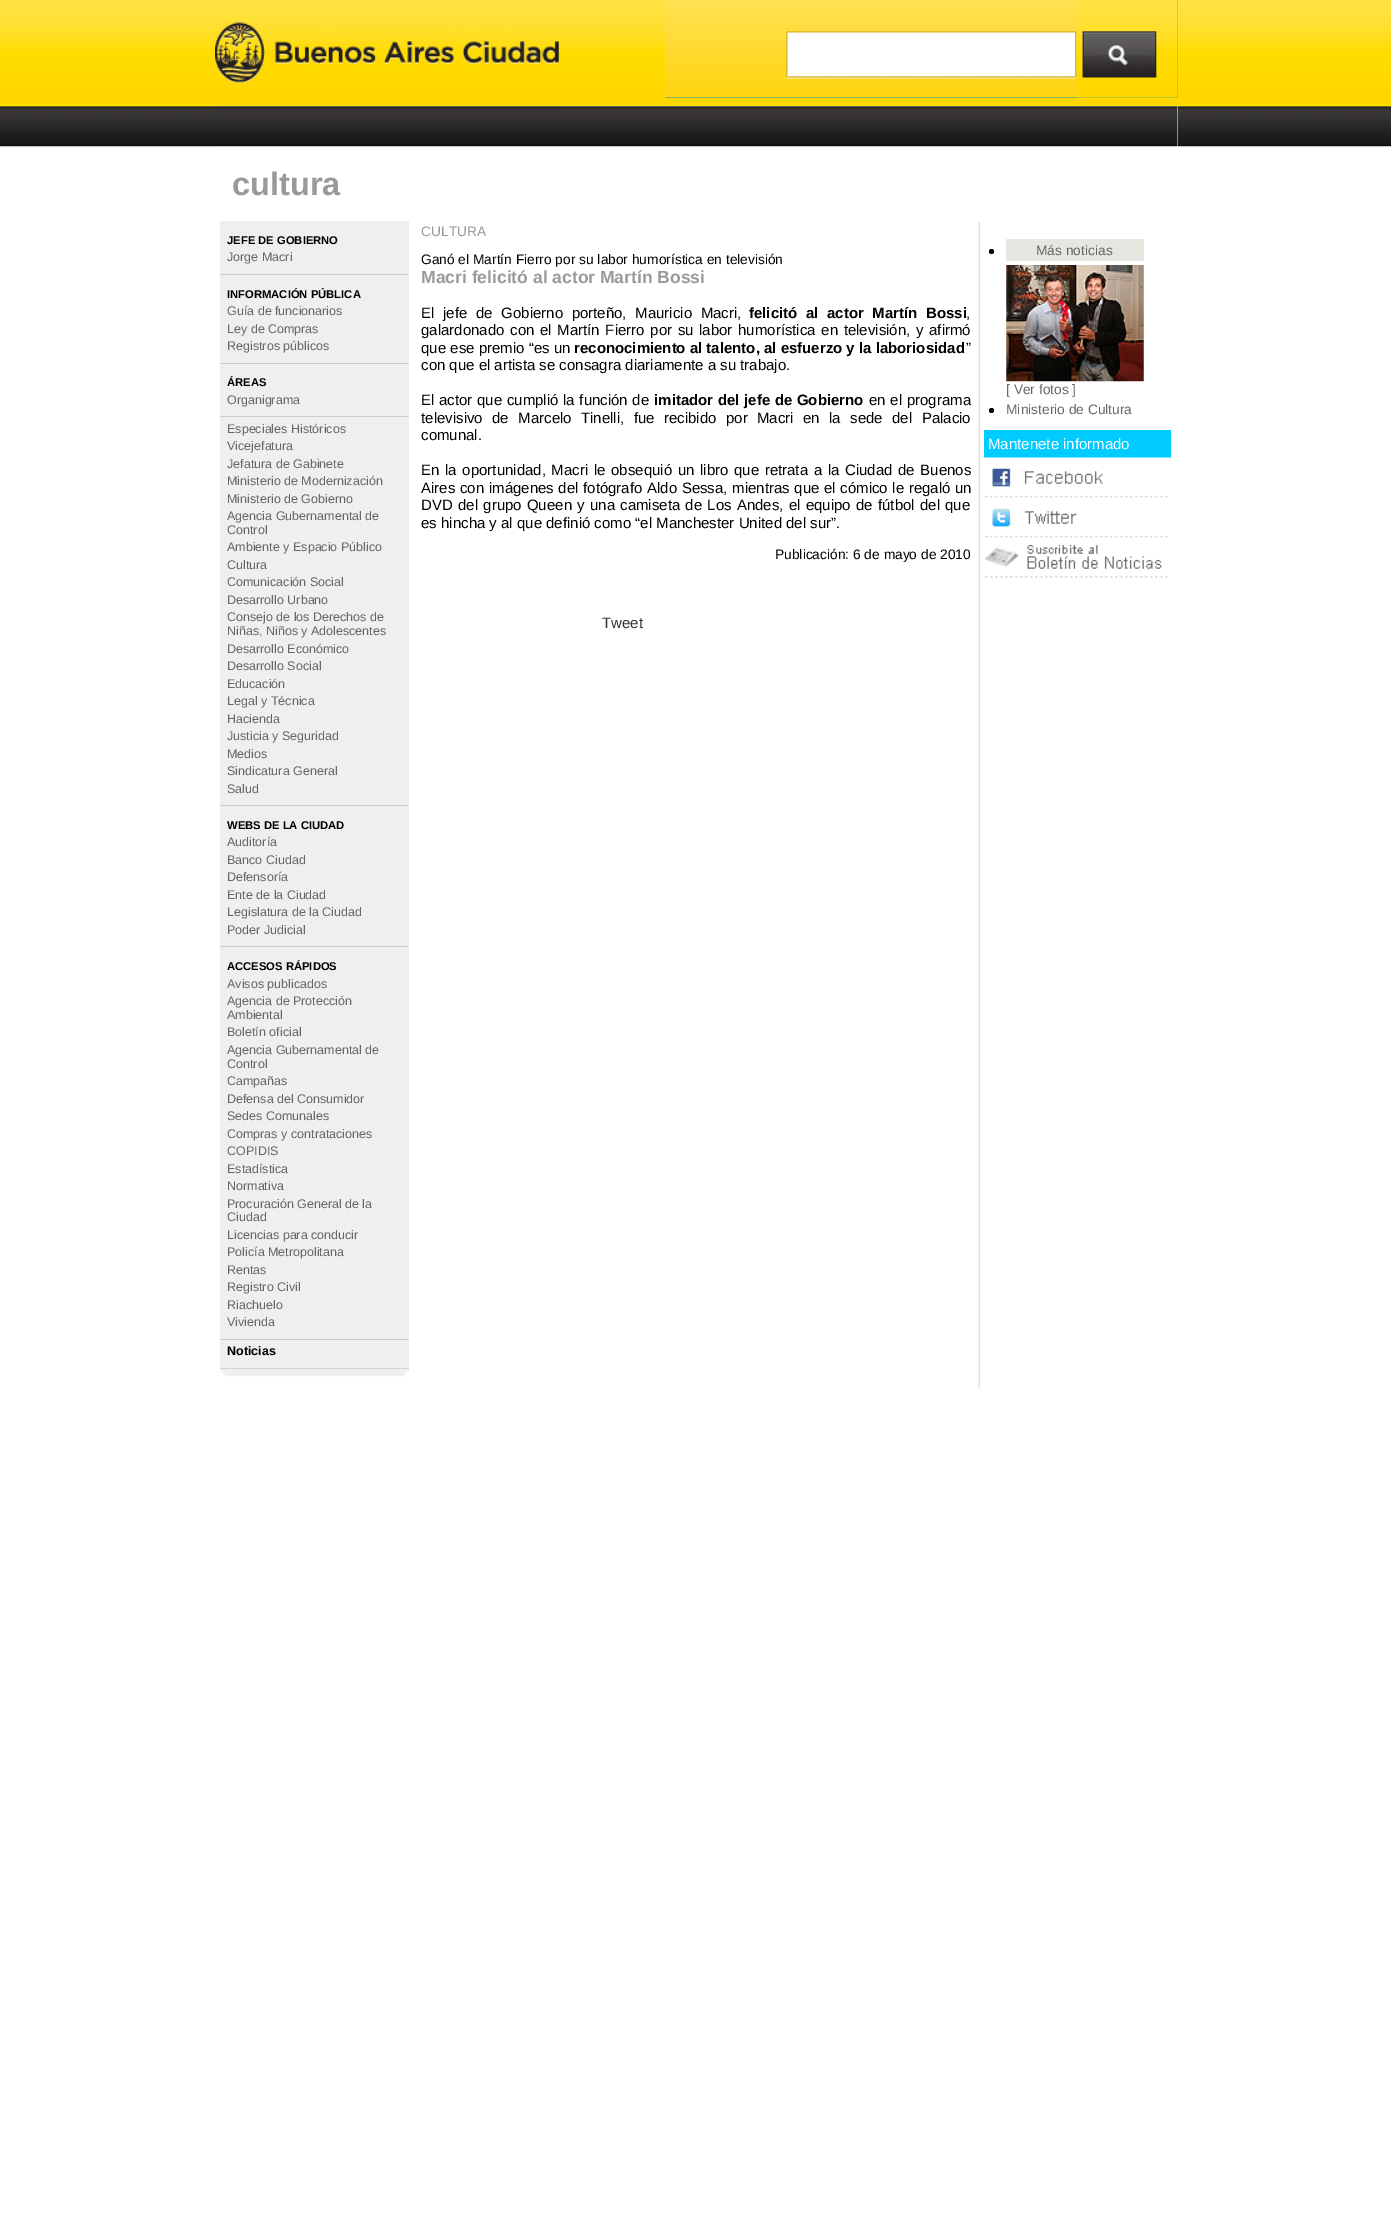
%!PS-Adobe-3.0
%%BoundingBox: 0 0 1391 2213
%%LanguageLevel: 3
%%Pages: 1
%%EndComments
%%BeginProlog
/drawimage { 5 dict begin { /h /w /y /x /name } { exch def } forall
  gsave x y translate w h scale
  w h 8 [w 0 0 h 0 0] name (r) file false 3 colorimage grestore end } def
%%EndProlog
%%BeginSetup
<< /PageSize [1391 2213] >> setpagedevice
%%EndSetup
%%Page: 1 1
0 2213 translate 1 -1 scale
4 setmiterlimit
1 setgray
0 0 1391 2213 rectfill
(images/1.raw) 0 0 1391 147 drawimage
215 106 963 41 rectfill
1 0.839 0.078 setrgbcolor
1177 98 1 8 rectfill
(images/7.raw) 978 106 2 1283 drawimage
(images/2.raw) 215 0 963 107 drawimage
(images/3.raw) 215 22 344 85 drawimage
0 0.6 0.6 setrgbcolor
665 0 513 98 rectfill
(images/4.raw) 665 0 513 98 drawimage
1 setgray
1074 33 1 43 rectfill
(images/5.raw) 1077 0 101 98 drawimage
978 146 2 70 rectfill
(images/6.raw) 215 106 963 41 drawimage
0.937 setgray
220 221 189 1147 rectfill
0.804 0.804 0.773 setrgbcolor
220 274 189 1 rectfill
220 363 189 1 rectfill
220 416 189 1 rectfill
220 805 189 1 rectfill
220 946 189 1 rectfill
220 1339 189 1 rectfill
220 1368 189 1 rectfill
(images/8.raw) 220 1368 189 9 drawimage
(images/9.raw) 978 216 2 6 drawimage
0 setgray
newpath 991.5 251.5 2.5 0 360 arc closepath fill
0.91 0.902 0.882 setrgbcolor
1006 239 138 22 rectfill
(images/10.raw) 1006 265 138 117 drawimage
0 setgray
newpath 991.5 410.5 2.5 0 360 arc closepath fill
0 0.8 1 setrgbcolor
984 430 187 28 rectfill
(images/11.raw) 984 457 187 41 drawimage
(images/12.raw) 985 497 183 41 drawimage
(images/13.raw) 985 537 183 41 drawimage
/LiberationSans-Bold [32.5 0 0 -32.5 0 0] selectfont
0.6 setgray
232 195 moveto (cultura) show
/LiberationSans-Bold [11.25 0 0 -11.25 0 0] selectfont
0 setgray
227 244 moveto (JEFE DE GOBIERNO) show
/LiberationSans-Regular [12.5 0 0 -12.5 0 0] selectfont
0.4 setgray
227 261 moveto (Jorge Macri) show
/LiberationSans-Bold [11.25 0 0 -11.25 0 0] selectfont
0 setgray
227 298 moveto (INFORMACIÓN PÚBLICA) show
/LiberationSans-Regular [12.5 0 0 -12.5 0 0] selectfont
0.4 setgray
227 315 moveto (Guía de funcionarios) show
227 333 moveto (Ley de Compras) show
227 350 moveto (Registros públicos) show
/LiberationSans-Bold [11.25 0 0 -11.25 0 0] selectfont
0 setgray
227 386 moveto (ÁREAS) show
/LiberationSans-Regular [12.5 0 0 -12.5 0 0] selectfont
0.4 setgray
227 404 moveto (Organigrama) show
227 433 moveto (Especiales Históricos) show
227 450 moveto (Vicejefatura) show
227 468 moveto (Jefatura de Gabinete) show
227 485 moveto (Ministerio de Modernización) show
227 503 moveto (Ministerio de Gobierno) show
227 520 moveto (Agencia Gubernamental de) show
227 534 moveto (Control) show
227 551 moveto (Ambiente y Espacio Público) show
227 569 moveto (Cultura) show
227 586 moveto (Comunicación Social) show
227 604 moveto (Desarrollo Urbano) show
227 621 moveto (Consejo de los Derechos de) show
227 635 moveto (Niñas, Niños y Adolescentes) show
227 653 moveto (Desarrollo Económico) show
227 670 moveto (Desarrollo Social) show
227 688 moveto (Educación) show
227 705 moveto (Legal y Técnica) show
227 723 moveto (Hacienda) show
227 740 moveto (Justicia y Seguridad) show
227 758 moveto (Medios) show
227 775 moveto (Sindicatura General) show
227 793 moveto (Salud) show
/LiberationSans-Bold [11.25 0 0 -11.25 0 0] selectfont
0 setgray
227 829 moveto (WEBS DE LA CIUDAD) show
/LiberationSans-Regular [12.5 0 0 -12.5 0 0] selectfont
0.4 setgray
227 846 moveto (Auditoría) show
227 864 moveto (Banco Ciudad) show
227 881 moveto (Defensoría) show
227 899 moveto (Ente de la Ciudad) show
227 916 moveto (Legislatura de la Ciudad) show
227 934 moveto (Poder Judicial) show
/LiberationSans-Bold [11.25 0 0 -11.25 0 0] selectfont
0 setgray
227 970 moveto (ACCESOS RÁPIDOS) show
/LiberationSans-Regular [12.5 0 0 -12.5 0 0] selectfont
0.4 setgray
227 988 moveto (Avisos publicados) show
227 1005 moveto (Agencia de Protección) show
227 1019 moveto (Ambiental) show
227 1036 moveto (Boletín oficial) show
227 1054 moveto (Agencia Gubernamental de) show
227 1068 moveto (Control) show
227 1085 moveto (Campañas) show
227 1103 moveto (Defensa del Consumidor) show
227 1120 moveto (Sedes Comunales) show
227 1138 moveto (Compras y contrataciones) show
227 1155 moveto (COPIDIS) show
227 1173 moveto (Estadística) show
227 1190 moveto (Normativa) show
227 1208 moveto (Procuración General de la) show
227 1221 moveto (Ciudad) show
227 1239 moveto (Licencias para conducir) show
227 1256 moveto (Policía Metropolitana) show
227 1274 moveto (Rentas) show
227 1291 moveto (Registro Civil) show
227 1309 moveto (Riachuelo) show
227 1326 moveto (Vivienda) show
/LiberationSans-Bold [12.5 0 0 -12.5 0 0] selectfont
0 setgray
227 1355 moveto (Noticias) show
/LiberationSans-Regular [13.75 0 0 -13.75 0 0] selectfont
0.6 setgray
421 236 moveto (CULTURA) show
0 setgray
421 264 moveto (Ganó el Martín Fierro por su labor humorística en televisión) show
/LiberationSans-Bold [17.5 0 0 -17.5 0 0] selectfont
0.6 setgray
421 283 moveto (Macri felicitó al actor Martín Bossi) show
/LiberationSans-Regular [15 0 0 -15 0 0] selectfont
0 setgray
421 318 moveto 4.5 0 32 (El jefe de Gobierno porteño, Mauricio Macri,) widthshow
/LiberationSans-Bold [15 0 0 -15 0 0] selectfont
749 318 moveto 4.5 0 32 (felicitó al actor Martín Bossi) widthshow
/LiberationSans-Regular [15 0 0 -15 0 0] selectfont
966 318 moveto (,) show
421 335 moveto 1.5 0 32 (galardonado con el Martín Fierro por su labor humorística en televisión, y afirmó) widthshow
421 353 moveto (que ese premio “es un) show
/LiberationSans-Bold [15 0 0 -15 0 0] selectfont
574 353 moveto (reconocimiento al talento, al esfuerzo y la laboriosidad) show
/LiberationSans-Regular [15 0 0 -15 0 0] selectfont
966 353 moveto (”) show
421 370 moveto (con que el artista se consagra diariamente a su trabajo.) show
421 405 moveto 0.5 0 32 (El actor que cumplió la función de) widthshow
/LiberationSans-Bold [15 0 0 -15 0 0] selectfont
654 405 moveto 0.5 0 32 (imitador del jefe de Gobierno) widthshow
/LiberationSans-Regular [15 0 0 -15 0 0] selectfont
869 405 moveto 0.5 0 32 (en el programa) widthshow
421 423 moveto 5.25 0 32 (televisivo de Marcelo Tinelli, fue recibido por Macri en la sede del Palacio) widthshow
421 440 moveto (comunal.) show
421 475 moveto 1.5 0 32 (En la oportunidad, Macri le obsequió un libro que retrata a la Ciudad de Buenos) widthshow
421 493 moveto 0.5 0 32 (Aires con imágenes del fotógrafo Aldo Sessa, mientras que el cómico le regaló un) widthshow
421 510 moveto 1.1 0 32 (DVD del grupo Queen y una camiseta de Los Andes, el equipo de fútbol del que) widthshow
421 528 moveto (es hincha y al que definió como “el Manchester United del sur”.) show
/LiberationSans-Regular [13.75 0 0 -13.75 0 0] selectfont
775 559 moveto (Publicación: 6 de mayo de 2010) show
/LiberationSans-Regular [15 0 0 -15 0 0] selectfont
0.2 setgray
602 628 moveto (Tweet) show
/LiberationSans-Regular [13.75 0 0 -13.75 0 0] selectfont
0.4 setgray
1036 255 moveto (Más noticias) show
1006 394 moveto ([ Ver fotos ]) show
1006 414 moveto (Ministerio de Cultura) show
/LiberationSans-Regular [15 0 0 -15 0 0] selectfont
1 setgray
988 449 moveto (Mantenete informado) show
showpage
%%EOF
